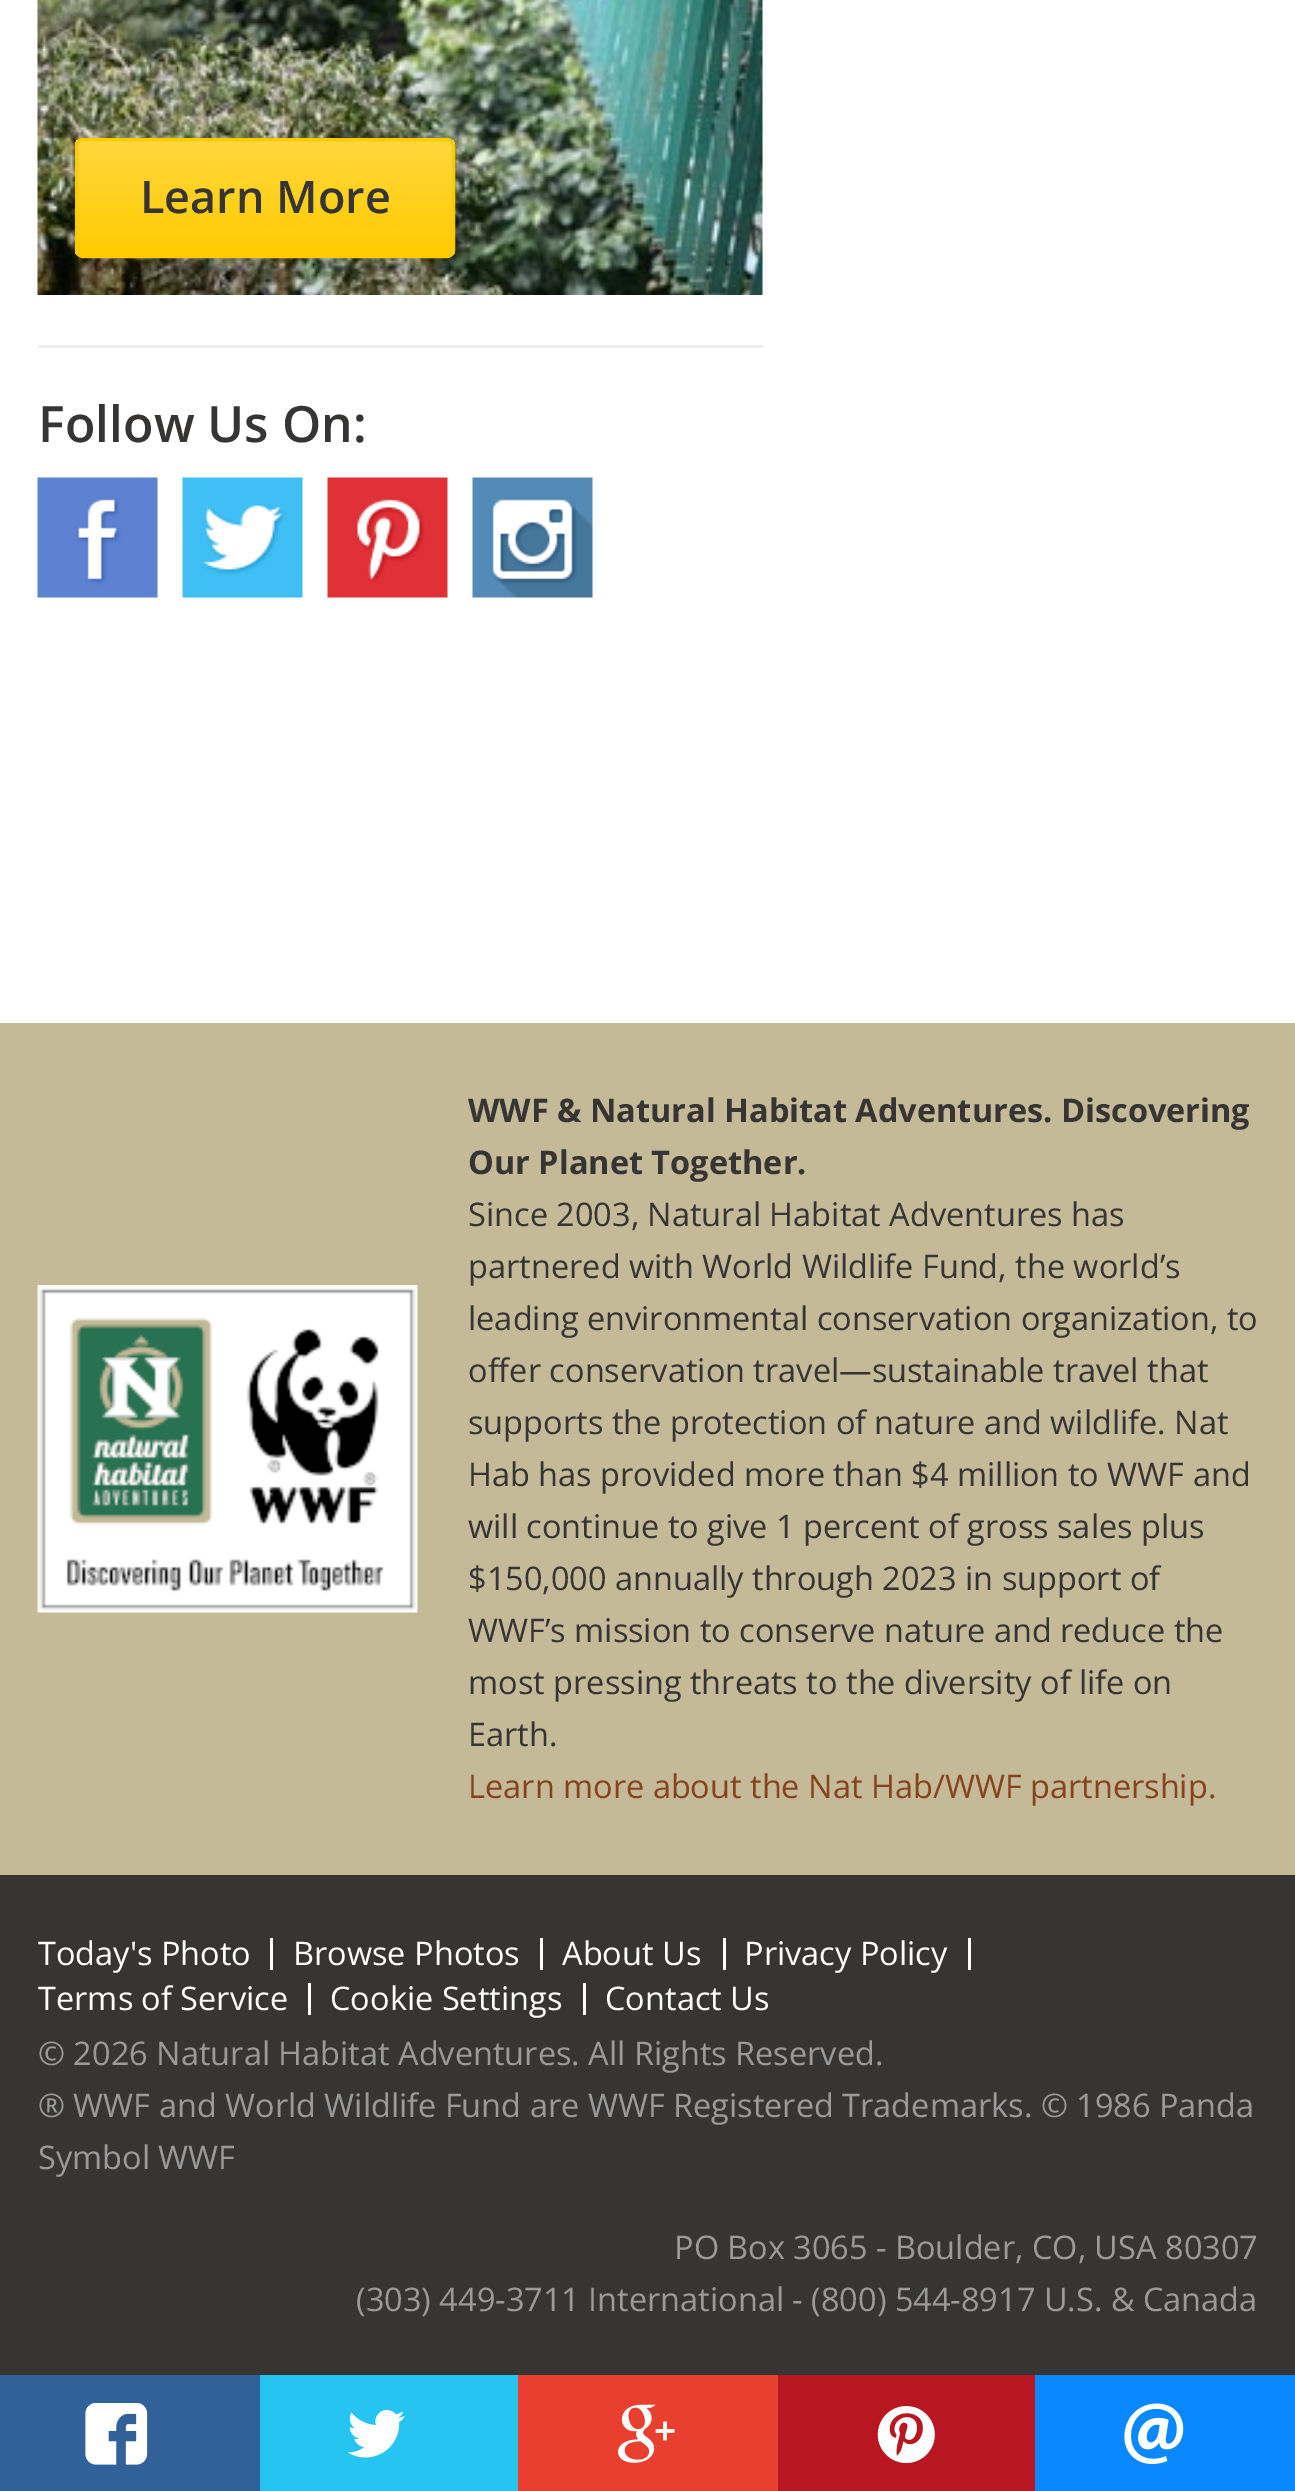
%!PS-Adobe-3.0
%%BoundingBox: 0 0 1295 2491
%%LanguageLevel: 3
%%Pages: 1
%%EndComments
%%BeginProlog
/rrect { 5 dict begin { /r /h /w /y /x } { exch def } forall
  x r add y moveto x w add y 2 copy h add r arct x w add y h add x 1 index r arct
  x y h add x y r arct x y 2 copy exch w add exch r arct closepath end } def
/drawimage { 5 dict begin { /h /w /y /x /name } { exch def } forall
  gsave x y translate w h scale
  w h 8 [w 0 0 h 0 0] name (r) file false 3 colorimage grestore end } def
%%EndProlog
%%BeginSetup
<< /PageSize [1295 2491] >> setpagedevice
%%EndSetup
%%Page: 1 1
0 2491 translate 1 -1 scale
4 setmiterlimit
0.216 0.208 0.204 setrgbcolor
0 0 1295 2491 rectfill
1 setgray
0 0 1295 1023 rectfill
(images/1.raw) 37 0 726 295 drawimage
gsave
75 138 380 120 8 rrect clip newpath
gsave newpath 75 140 moveto 455 140 lineto 455 255 lineto 75 255 lineto closepath clip newpath
<< /ShadingType 2 /ColorSpace /DeviceRGB /Coords [265 140 265 255] /Extend [true true] /Function << /FunctionType 2 /Domain [0 1] /C0 [1 0.843 0.239] /C1 [1 0.796 0] /N 1 >> >> shfill grestore
grestore
1 0.796 0 setrgbcolor
3 setlinewidth
76.5 139.5 377 117 6.5 rrect stroke
0.933 setgray
38 345 725 3 rectfill
(images/2.raw) 37 477 121 121 drawimage
(images/3.raw) 182 477 121 121 drawimage
(images/4.raw) 327 477 121 121 drawimage
(images/5.raw) 472 477 121 121 drawimage
0.188 0.38 0.6 setrgbcolor
0 2375 260 116 rectfill
(images/6.raw) 85 2403 63 62 drawimage
0.149 0.769 0.945 setrgbcolor
260 2375 258 116 rectfill
(images/7.raw) 347 2410 58 48 drawimage
0.914 0.247 0.18 setrgbcolor
518 2375 260 116 rectfill
(images/8.raw) 618 2404 57 59 drawimage
0.722 0.086 0.129 setrgbcolor
778 2375 257 116 rectfill
(images/9.raw) 877 2406 58 58 drawimage
0.039 0.533 1 setrgbcolor
1035 2375 260 116 rectfill
(images/10.raw) 1124 2403 60 61 drawimage
0.769 0.729 0.596 setrgbcolor
0 1023 1295 852 rectfill
(images/11.raw) 37 1285 381 328 drawimage
1 setgray
270 1938 3 32 rectfill
540 1938 3 32 rectfill
723 1938 3 32 rectfill
968 1938 3 32 rectfill
308 1983 3 32 rectfill
583 1983 3 32 rectfill
/OpenSans-SemiBold [45 0 0 -45 0 0] selectfont
0.216 0.208 0.204 setrgbcolor
140 213 moveto (Learn More) show
/OpenSans-SemiBold [50 0 0 -50 0 0] selectfont
38 442 moveto (Follow Us On:) show
/OpenSans-Bold [32.5 0 0 -32.5 0 0] selectfont
468 1122 moveto (WWF & Natural Habitat Adventures. Discovering) show
468 1174 moveto (Our Planet Together.) show
/OpenSans-Regular [32.5 0 0 -32.5 0 0] selectfont
468 1226 moveto (Since 2003, Natural Habitat Adventures has) show
468 1278 moveto (partnered with World Wildlife Fund, the world’s) show
468 1330 moveto (leading environmental conservation organization, to) show
468 1382 moveto (offer conservation travel—sustainable travel that) show
468 1434 moveto (supports the protection of nature and wildlife. Nat) show
468 1486 moveto (Hab has provided more than $4 million to WWF and) show
468 1538 moveto (will continue to give 1 percent of gross sales plus) show
468 1590 moveto ($150,000 annually through 2023 in support of) show
468 1642 moveto (WWF’s mission to conserve nature and reduce the) show
468 1694 moveto (most pressing threats to the diversity of life on) show
468 1746 moveto (Earth.) show
0.529 0.263 0.118 setrgbcolor
468 1798 moveto (Learn more about the Nat Hab/WWF partnership.) show
1 setgray
38 1965 moveto (Today's Photo) show
293 1965 moveto (Browse Photos) show
562 1965 moveto (About Us) show
744 1965 moveto (Privacy Policy) show
38 2010 moveto (Terms of Service) show
330 2010 moveto (Cookie Settings) show
605 2010 moveto (Contact Us) show
0.604 setgray
38 2065 moveto (© 2026 Natural Habitat Adventures. All Rights Reserved.) show
38 2117 moveto (® WWF and World Wildlife Fund are WWF Registered Trademarks. © 1986 Panda) show
38 2169 moveto (Symbol WWF) show
674 2259 moveto (PO Box 3065 - Boulder, CO, USA 80307) show
356 2311 moveto (\(303\) 449-3711 International - \(800\) 544-8917 U.S. & Canada) show
showpage
%%EOF
